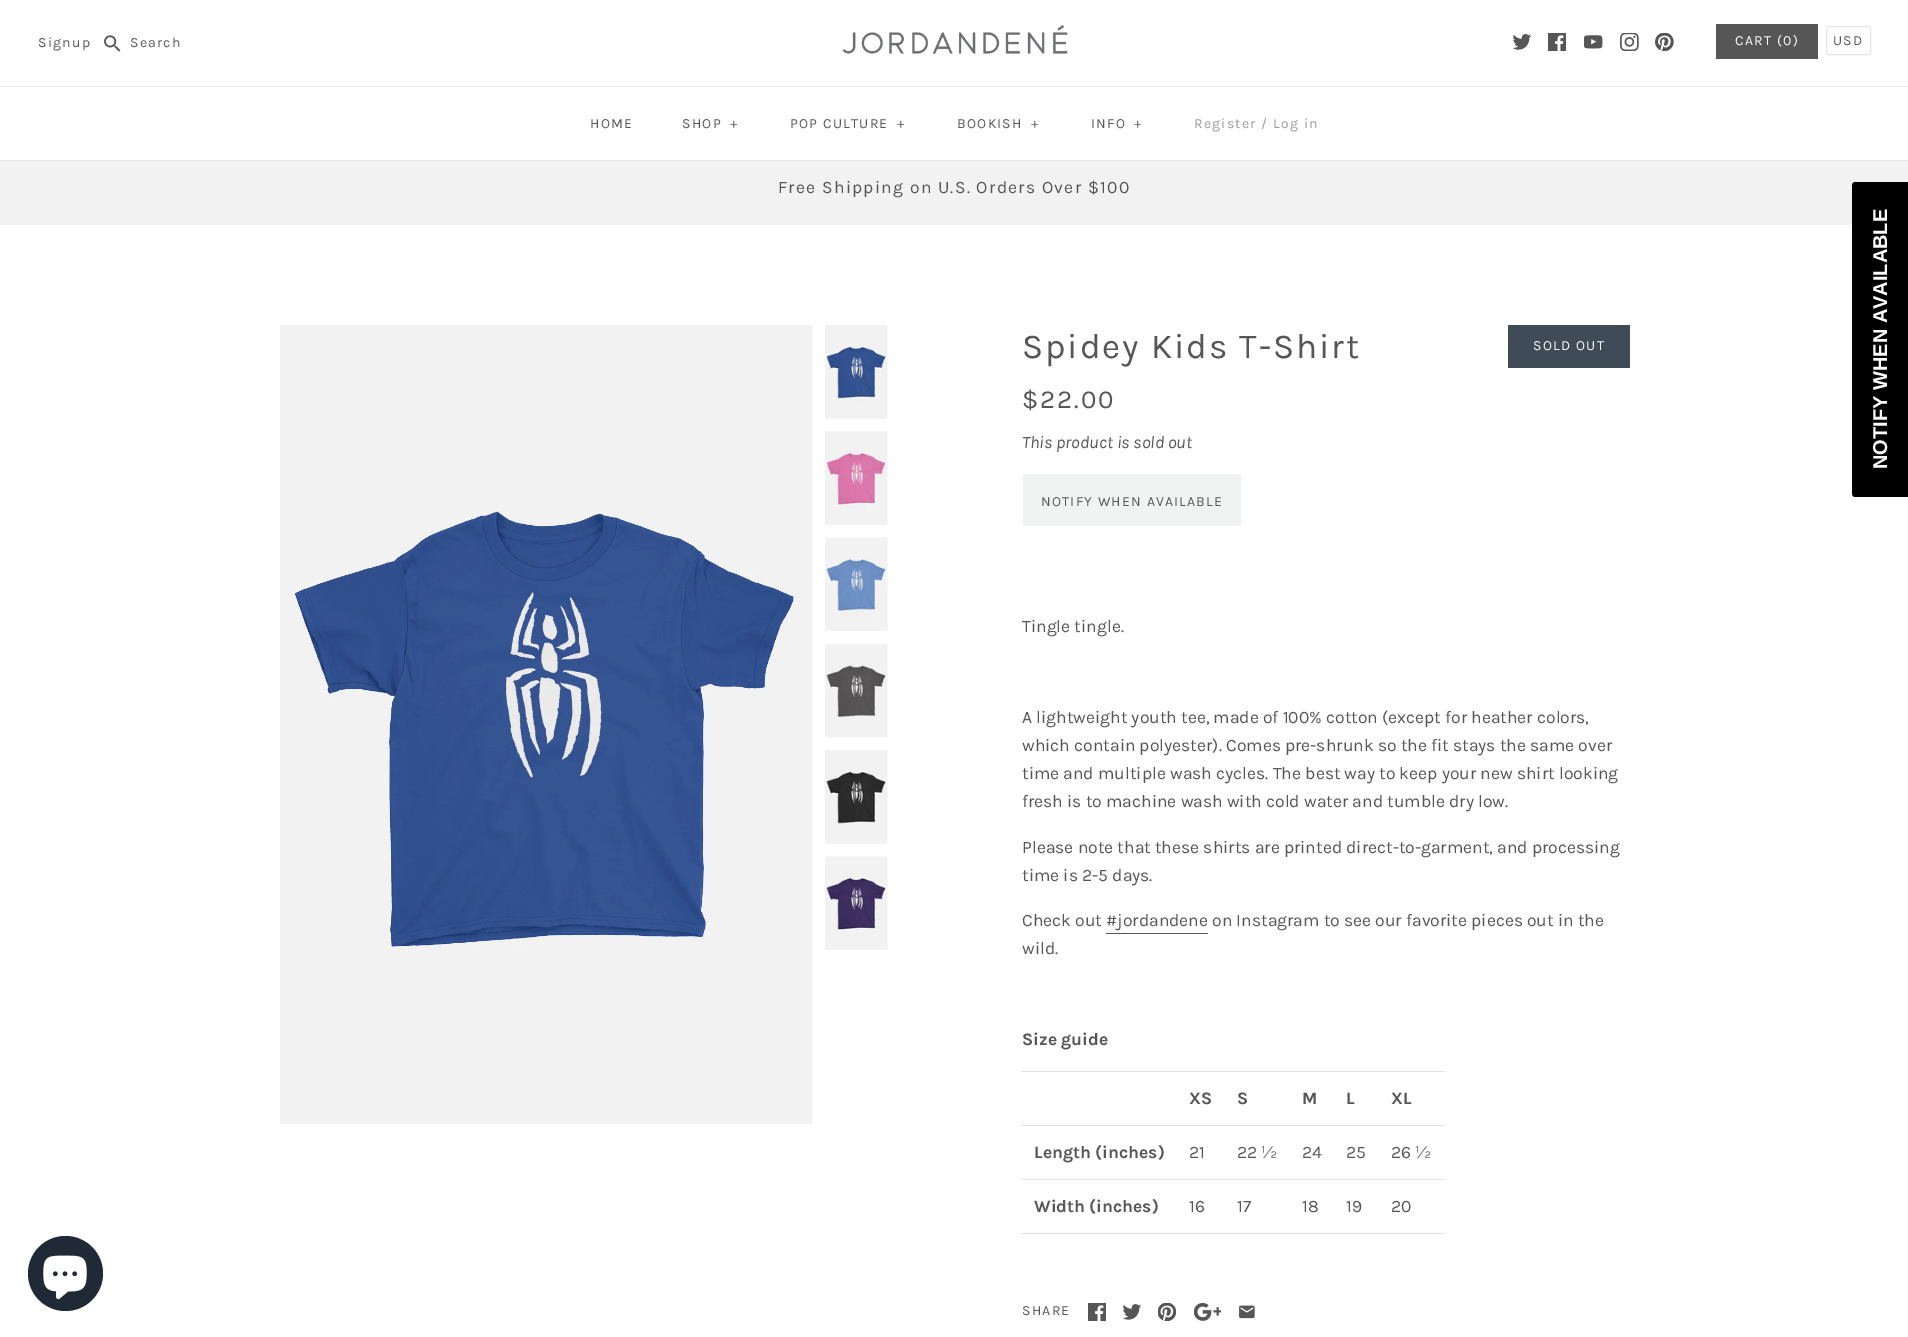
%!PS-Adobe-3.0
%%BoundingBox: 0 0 1908 1337
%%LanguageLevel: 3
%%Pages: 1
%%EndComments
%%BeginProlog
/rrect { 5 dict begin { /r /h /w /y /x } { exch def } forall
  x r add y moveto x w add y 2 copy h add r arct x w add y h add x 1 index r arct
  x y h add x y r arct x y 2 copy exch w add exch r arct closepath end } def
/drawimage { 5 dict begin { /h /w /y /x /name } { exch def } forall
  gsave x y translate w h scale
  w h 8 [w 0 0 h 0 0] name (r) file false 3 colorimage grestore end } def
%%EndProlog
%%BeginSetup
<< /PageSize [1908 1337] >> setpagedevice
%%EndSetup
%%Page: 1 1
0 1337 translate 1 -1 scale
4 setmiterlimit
1 setgray
0 0 1908 1337 rectfill
(images/1.raw) 842 25 226 29 drawimage
(images/2.raw) 104 35 17 17 drawimage
(images/3.raw) 1513 34 18 16 drawimage
(images/4.raw) 1548 33 18 18 drawimage
(images/5.raw) 1584 35 19 14 drawimage
(images/6.raw) 1620 33 19 18 drawimage
(images/7.raw) 1655 33 19 18 drawimage
0.337 setgray
1716 24 102 35 rectfill
0.902 setgray
1826.5 26.5 44 28 2 rrect stroke
0 160 1908 1 rectfill
0 86 1908 1 rectfill
0.949 setgray
0 161 1908 64 rectfill
0.125 0.165 0.212 setrgbcolor
newpath 65.5 1273.5 37.5 0 360 arc closepath fill
(images/8.raw) 43 1255 44 45 drawimage
(images/9.raw) 280 325 533 799 drawimage
(images/10.raw) 825 325 63 94 drawimage
(images/11.raw) 825 431 63 94 drawimage
(images/12.raw) 825 537 63 94 drawimage
(images/13.raw) 825 644 63 94 drawimage
(images/14.raw) 825 750 63 94 drawimage
(images/15.raw) 825 856 63 94 drawimage
0.247 0.294 0.341 setrgbcolor
1508 325 122 43 rectfill
0.945 0.949 0.949 setrgbcolor
1023 474 218 52 rectfill
0.337 setgray
1106 933 102 1 rectfill
0.886 setgray
1021 1071 424 1 rectfill
1021 1125 424 1 rectfill
1021 1179 424 1 rectfill
1021 1233 424 1 rectfill
(images/4.raw) 1088 1303 18 18 drawimage
(images/3.raw) 1123 1304 18 16 drawimage
(images/16.raw) 1158 1303 18 18 drawimage
(images/17.raw) 1194 1303 27 18 drawimage
(images/18.raw) 1239 1305 16 14 drawimage
0 setgray
newpath 1853 493 moveto 1853 186 lineto 1853 185 1854 183 1855 183 curveto 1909 183 lineto 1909 495 lineto 1855 495 lineto 1854 495 1853 494 1853 493 curveto closepath fill
newpath 1852 493 moveto 1852 186 lineto 1852 184 1853 182 1855 182 curveto 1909 182 lineto 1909 497 lineto 1855 497 lineto 1853 497 1852 495 1852 493 curveto closepath 1853 493 moveto 1853 186 lineto 1853 185 1854 183 1855 183 curveto 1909 183 lineto 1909 495 lineto 1855 495 lineto 1854 495 1853 494 1853 493 curveto closepath eofill
/Karla-Regular [14 0 0 -14 0 0] selectfont
0.337 setgray
38 47 moveto 1.25 0 (Signup) ashow
130 47 moveto 1.25 0 (Search) ashow
1 setgray
1735 45 moveto 1.25 0 (CART \(0\)) ashow
0.337 setgray
1833 45 moveto 1.25 0 (USD) ashow
590 128 moveto 1.25 0 (HOME) ashow
682 128 moveto 1.25 0 (SHOP) ashow
730 128 moveto 1.25 0 (+) ashow
790 128 moveto 1.25 0 (POP CULTURE) ashow
897 128 moveto 1.25 0 (+) ashow
957 128 moveto 1.25 0 (BOOKISH) ashow
1031 128 moveto 1.25 0 (+) ashow
1091 128 moveto 1.25 0 (INFO) ashow
1134 128 moveto 1.25 0 (+) ashow
0.6 setgray
1194 128 moveto 1.25 0 (Register / Log in) ashow
/Karla-Regular [17.5 0 0 -17.5 0 0] selectfont
0.337 setgray
778 193 moveto 1.25 0 (Free Shipping on U.S. Orders Over $100) ashow
/Karla-Regular [35 0 0 -35 0 0] selectfont
1022 358 moveto 1.9 0 (Spidey Kids T-Shirt) ashow
/Karla-Regular [14 0 0 -14 0 0] selectfont
1 setgray
1533 350 moveto 1.25 0 (SOLD OUT) ashow
/Karla-Regular [26 0 0 -26 0 0] selectfont
0.337 setgray
1022 408 moveto 1.9 0 ($22.00) ashow
/Karla-Italic [17.5 0 0 -17.5 0 0] selectfont
1022 448 moveto (This product is sold out) show
/Karla-Regular [14 0 0 -14 0 0] selectfont
1041 506 moveto 1.25 0 (NOTIFY WHEN AVAILABLE) ashow
/Karla-Regular [17.5 0 0 -17.5 0 0] selectfont
1022 632 moveto (Tingle tingle.) show
1022 723 moveto (A lightweight youth tee, made of 100% cotton \(except for heather colors,) show
1022 751 moveto (which contain polyester\). Comes pre-shrunk so the fit stays the same over) show
1022 779 moveto (time and multiple wash cycles. The best way to keep your new shirt looking) show
1022 807 moveto (fresh is to machine wash with cold water and tumble dry low.) show
1022 853 moveto (Please note that these shirts are printed direct-to-garment, and processing) show
1022 881 moveto (time is 2-5 days.) show
1022 926 moveto (Check out #jordandene on Instagram to see our favorite pieces out in the) show
1022 954 moveto (wild.) show
/Karla-Bold [17.5 0 0 -17.5 0 0] selectfont
1022 1045 moveto (Size guide) show
1189 1104 moveto (XS) show
1237 1104 moveto (S) show
1302 1104 moveto (M) show
1346 1104 moveto (L) show
1391 1104 moveto (XL) show
1034 1158 moveto (Length \(inches\)) show
/Karla-Regular [17.5 0 0 -17.5 0 0] selectfont
1189 1158 moveto (21) show
1237 1158 moveto (22 ½) show
1302 1158 moveto (24) show
1346 1158 moveto (25) show
1391 1158 moveto (26 ½) show
/Karla-Bold [17.5 0 0 -17.5 0 0] selectfont
1034 1212 moveto (Width \(inches\)) show
/Karla-Regular [17.5 0 0 -17.5 0 0] selectfont
1189 1212 moveto (16) show
1237 1212 moveto (17) show
1302 1212 moveto (18) show
1346 1212 moveto (19) show
1391 1212 moveto (20) show
/Karla-Regular [14 0 0 -14 0 0] selectfont
1022 1315 moveto 1.25 0 (SHARE) ashow
/LiberationSans-Bold [20 0 0 -20 0 0] selectfont
1 setgray
gsave 1887 469 translate -90 rotate 0 0 moveto (NOTIFY WHEN AVAILABLE) show grestore
showpage
%%EOF
